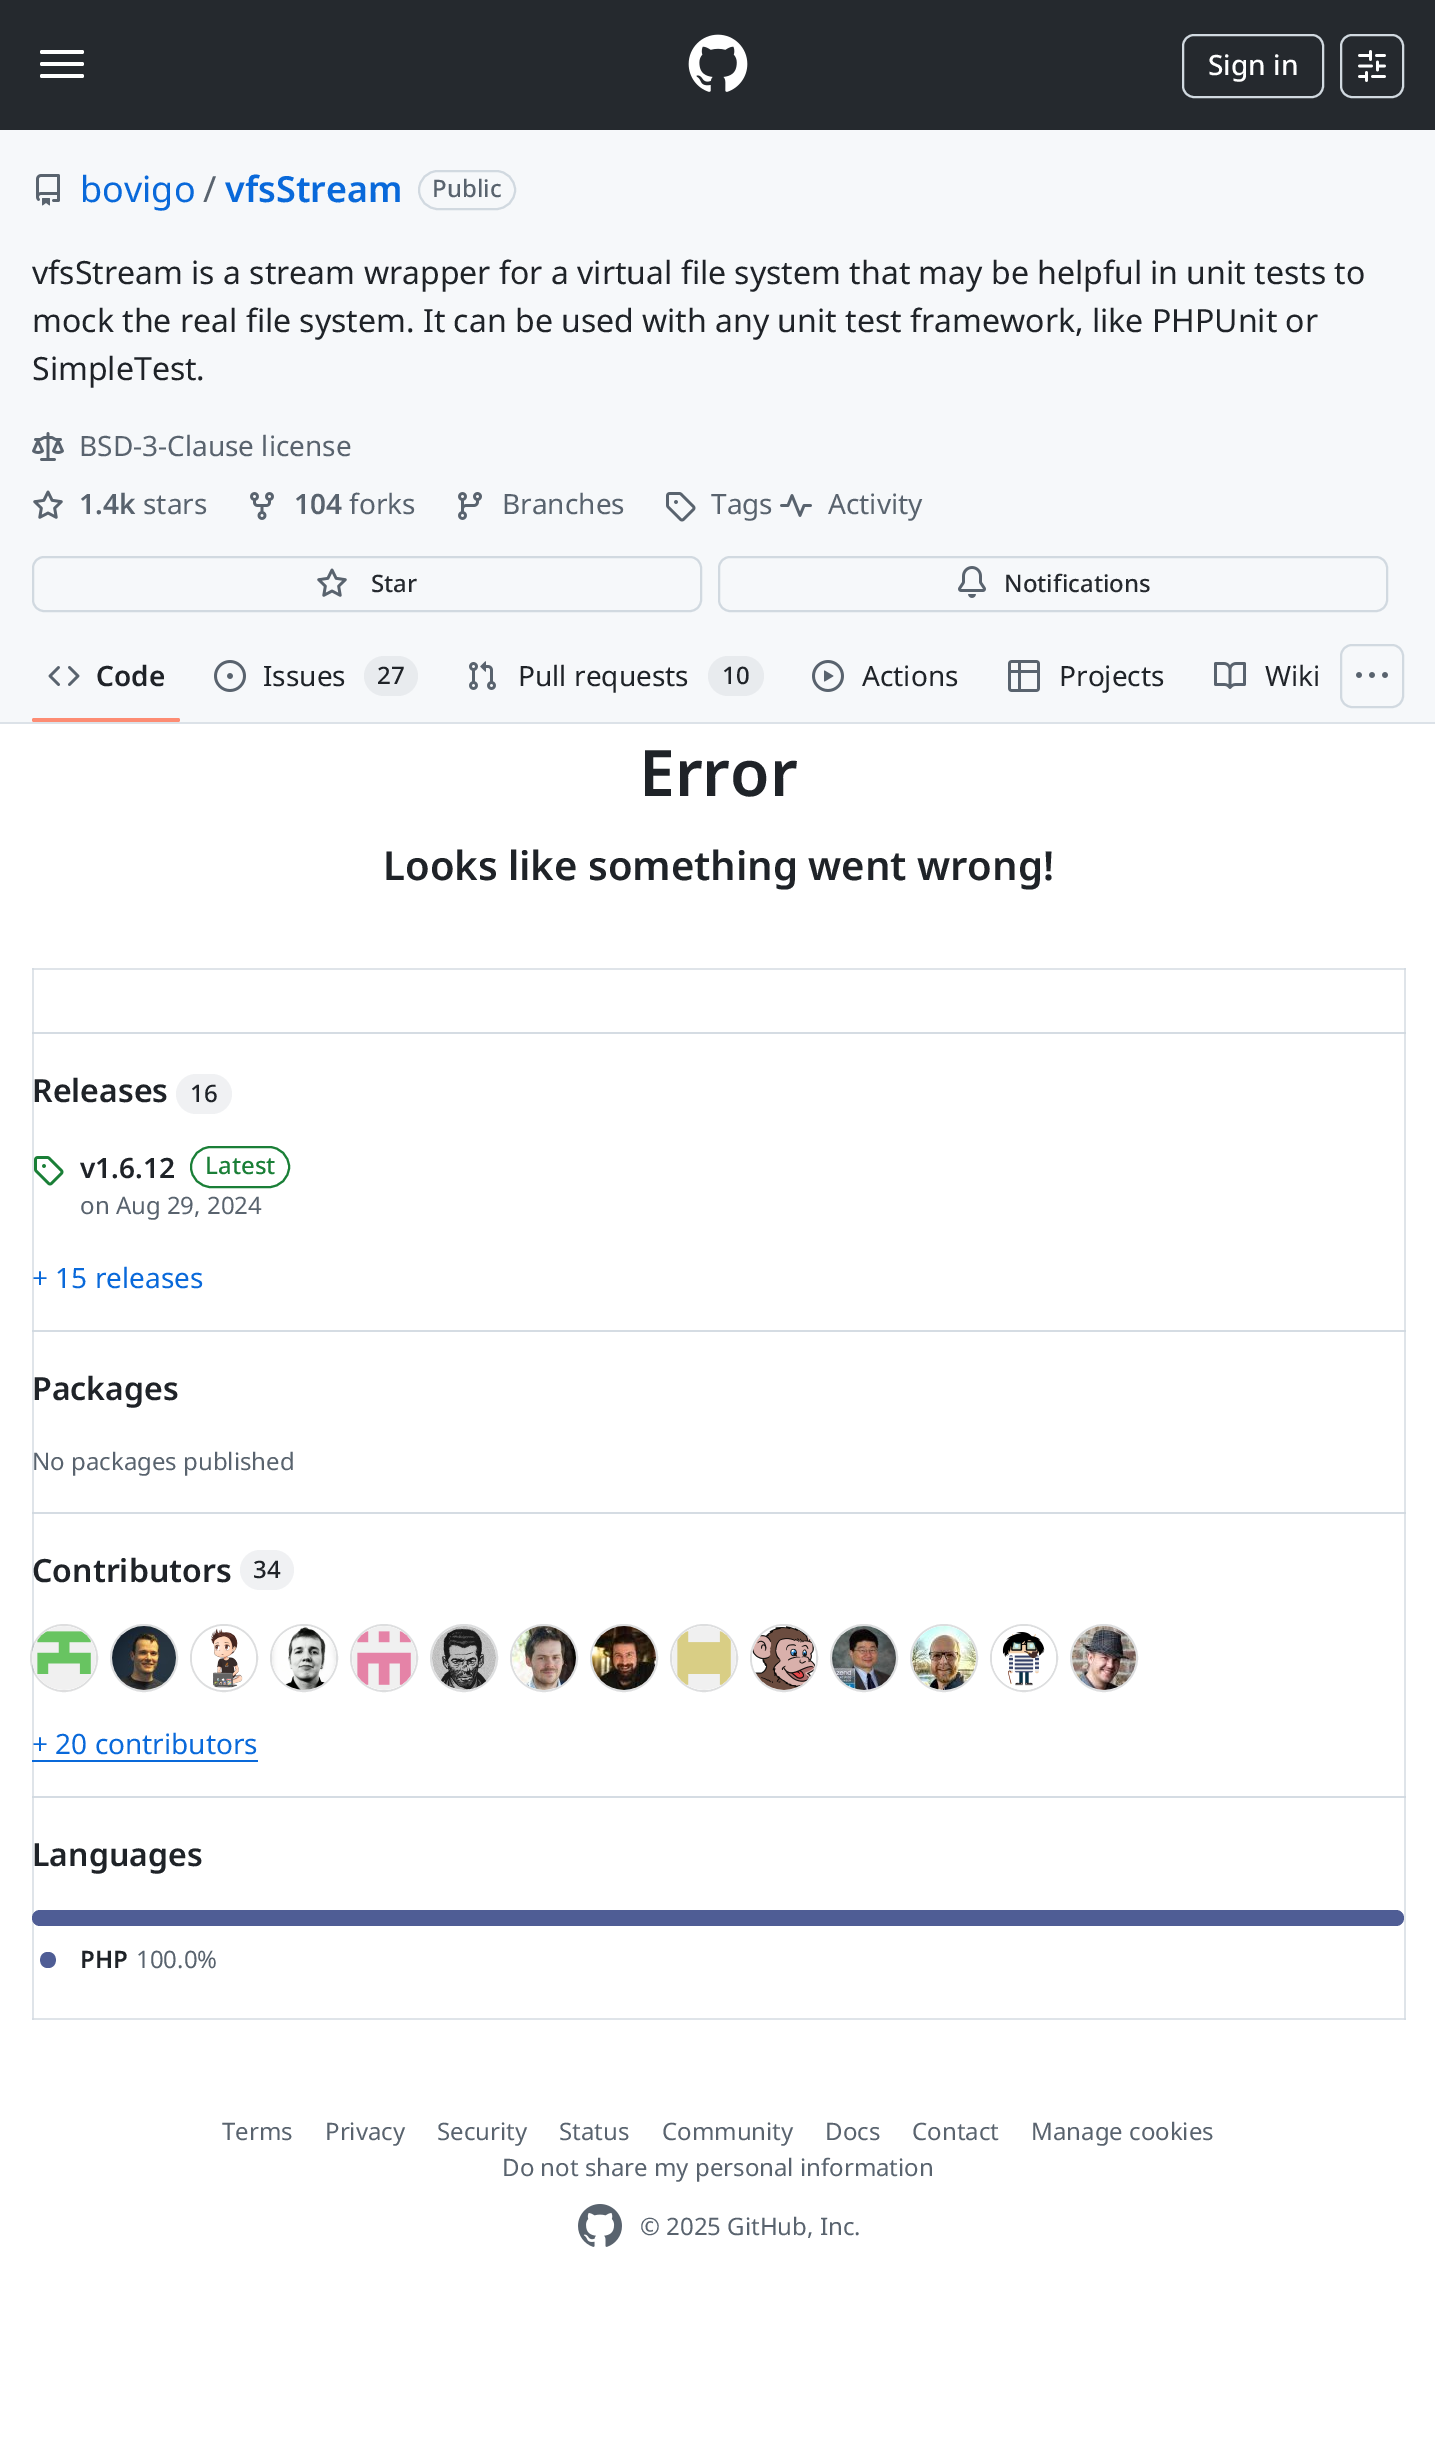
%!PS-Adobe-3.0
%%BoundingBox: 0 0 1435 2453
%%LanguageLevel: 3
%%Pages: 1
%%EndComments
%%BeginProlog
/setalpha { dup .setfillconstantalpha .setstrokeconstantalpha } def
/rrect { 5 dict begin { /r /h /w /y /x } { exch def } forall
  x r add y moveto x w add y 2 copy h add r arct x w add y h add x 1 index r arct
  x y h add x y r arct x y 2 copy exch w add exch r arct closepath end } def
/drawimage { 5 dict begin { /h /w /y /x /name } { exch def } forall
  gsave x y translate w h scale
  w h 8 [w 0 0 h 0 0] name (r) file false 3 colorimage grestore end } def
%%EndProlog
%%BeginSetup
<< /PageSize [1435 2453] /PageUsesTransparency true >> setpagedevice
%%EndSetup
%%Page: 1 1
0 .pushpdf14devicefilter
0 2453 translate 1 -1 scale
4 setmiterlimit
1 setgray
0 0 1435 2453 rectfill
0.875 0.894 0.914 setrgbcolor
32 968 2 1052 rectfill
1404 968 2 830 rectfill
32 2018 1374 2 rectfill
0.835 0.863 0.89 setrgbcolor
32 2018 2 2 rectfill
0.875 0.894 0.914 setrgbcolor
1404 1796 2 224 rectfill
0.835 0.863 0.89 setrgbcolor
1404 2018 2 2 rectfill
0.145 0.161 0.18 setrgbcolor
0 0 1435 130 rectfill
1 setgray
40 50 44 4 2 rrect fill
40 62 44 4 2 rrect fill
40 74 44 4 2 rrect fill
(images/1.raw) 688 34 60 58 drawimage
0.82 0.851 0.878 setrgbcolor
2 setlinewidth
1183 35 140 62 11 rrect stroke
1341 35 62 62 11 rrect stroke
(images/2.raw) 1358 50 28 32 drawimage
0.965 0.973 0.98 setrgbcolor
0 130 1435 592 rectfill
(images/3.raw) 36 174 24 32 drawimage
0.82 0.851 0.878 setrgbcolor
419 171 96 38 19 rrect stroke
(images/4.raw) 32 432 32 29 drawimage
(images/5.raw) 33 490 30 29 drawimage
(images/6.raw) 250 492 24 28 drawimage
(images/7.raw) 458 492 24 28 drawimage
(images/8.raw) 666 492 30 30 drawimage
(images/9.raw) 780 494 32 23 drawimage
33 557 668 54 11 rrect stroke
(images/5.raw) 317 568 30 29 drawimage
719 557 668 54 11 rrect stroke
(images/10.raw) 958 566 28 32 drawimage
0.863 0.886 0.91 setrgbcolor
0 722 1435 2 rectfill
(images/11.raw) 48 666 32 20 drawimage
0.992 0.549 0.451 setrgbcolor
32 718 148 4 2 rrect fill
(images/12.raw) 214 660 32 32 drawimage
0.91 0.922 0.933 setrgbcolor
364 656 54 40 20 rrect fill
(images/13.raw) 469 661 27 29 drawimage
708 656 56 40 20 rrect fill
(images/14.raw) 812 660 32 32 drawimage
(images/15.raw) 1008 660 32 32 drawimage
(images/16.raw) 1214 662 32 27 drawimage
0.82 0.851 0.878 setrgbcolor
1341 645 62 62 11 rrect stroke
(images/17.raw) 1356 672 32 6 drawimage
0.875 0.894 0.914 setrgbcolor
32 968 1374 2 rectfill
0.835 0.863 0.89 setrgbcolor
32 968 2 2 rectfill
1404 968 2 2 rectfill
32 1032 1374 2 rectfill
0.82 0.851 0.878 setrgbcolor
32 1032 2 2 rectfill
1404 1032 2 2 rectfill
0.941 0.945 0.953 setrgbcolor
176 1074 56 40 20 rrect fill
(images/18.raw) 34 1156 30 30 drawimage
0.102 0.498 0.216 setrgbcolor
191 1147 98 40 20 rrect stroke
0.835 0.863 0.89 setrgbcolor
32 1330 1374 2 rectfill
0.82 0.851 0.878 setrgbcolor
32 1330 2 2 rectfill
1404 1330 2 2 rectfill
0.835 0.863 0.89 setrgbcolor
32 1512 1374 2 rectfill
0.82 0.851 0.878 setrgbcolor
32 1512 2 2 rectfill
1404 1512 2 2 rectfill
0.941 0.945 0.953 setrgbcolor
240 1550 54 40 20 rrect fill
0.15 setalpha
0.122 0.137 0.157 setrgbcolor
newpath 64 1658 33 0 360 arc closepath stroke
1 setalpha
1 setgray
newpath 64 1658 32 0 360 arc closepath fill
(images/19.raw) 32 1626 64 64 drawimage
0.867 0.871 0.875 setrgbcolor
newpath 144 1658 33 0 360 arc closepath stroke
1 setgray
newpath 144 1658 32 0 360 arc closepath fill
(images/20.raw) 112 1626 64 64 drawimage
0.867 0.871 0.875 setrgbcolor
newpath 224 1658 33 0 360 arc closepath stroke
1 setgray
newpath 224 1658 32 0 360 arc closepath fill
(images/21.raw) 210 1628 33 60 drawimage
0.867 0.871 0.875 setrgbcolor
newpath 304 1658 33 0 360 arc closepath stroke
1 setgray
newpath 304 1658 32 0 360 arc closepath fill
(images/22.raw) 272 1626 64 64 drawimage
0.867 0.871 0.875 setrgbcolor
newpath 384 1658 33 0 360 arc closepath stroke
1 setgray
newpath 384 1658 32 0 360 arc closepath fill
(images/23.raw) 352 1626 64 64 drawimage
0.867 0.871 0.875 setrgbcolor
newpath 464 1658 33 0 360 arc closepath stroke
1 setgray
newpath 464 1658 32 0 360 arc closepath fill
(images/24.raw) 432 1626 64 64 drawimage
0.867 0.871 0.875 setrgbcolor
newpath 544 1658 33 0 360 arc closepath stroke
1 setgray
newpath 544 1658 32 0 360 arc closepath fill
(images/25.raw) 512 1626 64 64 drawimage
0.867 0.871 0.875 setrgbcolor
newpath 624 1658 33 0 360 arc closepath stroke
1 setgray
newpath 624 1658 32 0 360 arc closepath fill
(images/26.raw) 592 1626 64 64 drawimage
0.867 0.871 0.875 setrgbcolor
newpath 704 1658 33 0 360 arc closepath stroke
1 setgray
newpath 704 1658 32 0 360 arc closepath fill
(images/27.raw) 672 1626 64 64 drawimage
0.867 0.871 0.875 setrgbcolor
newpath 784 1658 33 0 360 arc closepath stroke
1 setgray
newpath 784 1658 32 0 360 arc closepath fill
(images/28.raw) 752 1626 63 64 drawimage
0.867 0.871 0.875 setrgbcolor
newpath 864 1658 33 0 360 arc closepath stroke
1 setgray
newpath 864 1658 32 0 360 arc closepath fill
(images/29.raw) 832 1626 64 64 drawimage
0.867 0.871 0.875 setrgbcolor
newpath 944 1658 33 0 360 arc closepath stroke
1 setgray
newpath 944 1658 32 0 360 arc closepath fill
(images/30.raw) 912 1626 64 64 drawimage
0.867 0.871 0.875 setrgbcolor
newpath 1024 1658 33 0 360 arc closepath stroke
1 setgray
newpath 1024 1658 32 0 360 arc closepath fill
(images/31.raw) 992 1626 64 64 drawimage
0.867 0.871 0.875 setrgbcolor
newpath 1104 1658 33 0 360 arc closepath stroke
1 setgray
newpath 1104 1658 32 0 360 arc closepath fill
(images/32.raw) 1072 1626 64 64 drawimage
0.035 0.412 0.855 setrgbcolor
32 1760 226 2 rectfill
0.835 0.863 0.89 setrgbcolor
32 1796 1374 2 rectfill
0.82 0.851 0.878 setrgbcolor
32 1796 2 2 rectfill
1404 1796 2 2 rectfill
0.31 0.365 0.584 setrgbcolor
32 1910 1372 16 8 rrect fill
newpath 48 1952 moveto 58.5 1952 58.5 1968 48 1968 curveto 37.5 1968 37.5 1952 48 1952 curveto closepath fill
(images/33.raw) 578 2204 44 43 drawimage
/NotoSans-Medium [28 0 0 -28 0 0] selectfont
1 setgray
1208 75 moveto (Sign in) show
/NotoSans-Regular [36 0 0 -36 0 0] selectfont
0.035 0.412 0.855 setrgbcolor
80 202 moveto (bovigo) show
0.349 0.388 0.431 setrgbcolor
203 202 moveto (/) show
/NotoSans-SemiBold [36 0 0 -36 0 0] selectfont
0.035 0.412 0.855 setrgbcolor
225 202 moveto (vfsStream) show
/NotoSans-Medium [24 0 0 -24 0 0] selectfont
0.349 0.388 0.431 setrgbcolor
432 197 moveto (Public) show
/NotoSans-Regular [32 0 0 -32 0 0] selectfont
0.122 0.137 0.157 setrgbcolor
32 284 moveto (vfsStream is a stream wrapper for a virtual file system that may be helpful in unit tests to) show
32 332 moveto (mock the real file system. It can be used with any unit test framework, like PHPUnit or) show
32 380 moveto (SimpleTest.) show
/NotoSans-Regular [28 0 0 -28 0 0] selectfont
0.349 0.388 0.431 setrgbcolor
79 456 moveto (BSD-3-Clause license) show
/NotoSans-SemiBold [28 0 0 -28 0 0] selectfont
79 514 moveto (1.4k) show
/NotoSans-Regular [28 0 0 -28 0 0] selectfont
143 514 moveto (stars) show
/NotoSans-SemiBold [28 0 0 -28 0 0] selectfont
294 514 moveto (104) show
/NotoSans-Regular [28 0 0 -28 0 0] selectfont
349 514 moveto (forks) show
502 514 moveto (Branches) show
711 514 moveto (Tags) show
828 514 moveto (Activity) show
/NotoSans-Medium [24 0 0 -24 0 0] selectfont
0.145 0.161 0.18 setrgbcolor
371 592 moveto (Star) show
1004 592 moveto (Notifications) show
/NotoSans-SemiBold [28 0 0 -28 0 0] selectfont
0.122 0.137 0.157 setrgbcolor
96 686 moveto (Code) show
/NotoSans-Regular [28 0 0 -28 0 0] selectfont
263 686 moveto (Issues) show
/NotoSans-Medium [24 0 0 -24 0 0] selectfont
377 684 moveto (27) show
/NotoSans-Regular [28 0 0 -28 0 0] selectfont
518 686 moveto (Pull requests) show
/NotoSans-Medium [24 0 0 -24 0 0] selectfont
722 684 moveto (10) show
/NotoSans-Regular [28 0 0 -28 0 0] selectfont
862 686 moveto (Actions) show
1059 686 moveto (Projects) show
1265 686 moveto (Wiki) show
/NotoSans-SemiBold [64 0 0 -64 0 0] selectfont
639 796 moveto (Error) show
/NotoSans-SemiBold [40 0 0 -40 0 0] selectfont
383 880 moveto (Looks like something went wrong!) show
/NotoSans-SemiBold [32 0 0 -32 0 0] selectfont
32 1102 moveto (Releases) show
/NotoSans-Medium [24 0 0 -24 0 0] selectfont
190 1102 moveto (16) show
/NotoSans-SemiBold [28 0 0 -28 0 0] selectfont
80 1178 moveto (v1.6.12) show
/NotoSans-Medium [24 0 0 -24 0 0] selectfont
0.102 0.498 0.216 setrgbcolor
205 1174 moveto (Latest) show
/NotoSans-Regular [24 0 0 -24 0 0] selectfont
0.349 0.388 0.431 setrgbcolor
80 1214 moveto (on Aug 29, 2024) show
/NotoSans-Regular [28 0 0 -28 0 0] selectfont
0.035 0.412 0.855 setrgbcolor
32 1288 moveto (+ 15 releases) show
/NotoSans-SemiBold [32 0 0 -32 0 0] selectfont
0.122 0.137 0.157 setrgbcolor
32 1400 moveto (Packages) show
/NotoSans-Regular [24 0 0 -24 0 0] selectfont
0.349 0.388 0.431 setrgbcolor
32 1470 moveto (No packages published) show
/NotoSans-SemiBold [32 0 0 -32 0 0] selectfont
0.122 0.137 0.157 setrgbcolor
32 1582 moveto (Contributors) show
/NotoSans-Medium [24 0 0 -24 0 0] selectfont
253 1578 moveto (34) show
/NotoSans-Regular [28 0 0 -28 0 0] selectfont
0.035 0.412 0.855 setrgbcolor
32 1754 moveto (+ 20 contributors) show
/NotoSans-SemiBold [32 0 0 -32 0 0] selectfont
0.122 0.137 0.157 setrgbcolor
32 1866 moveto (Languages) show
/NotoSans-SemiBold [24 0 0 -24 0 0] selectfont
80 1968 moveto (PHP) show
/NotoSans-Regular [24 0 0 -24 0 0] selectfont
0.349 0.388 0.431 setrgbcolor
136 1968 moveto (100.0%) show
222 2140 moveto (Terms) show
325 2140 moveto (Privacy) show
437 2140 moveto (Security) show
559 2140 moveto (Status) show
662 2140 moveto (Community) show
825 2140 moveto (Docs) show
912 2140 moveto (Contact) show
1031 2140 moveto (Manage cookies) show
502 2176 moveto (Do not share my personal information) show
640 2235 moveto (© 2025 GitHub, Inc.) show
.poppdf14devicefilter showpage
%%EOF
